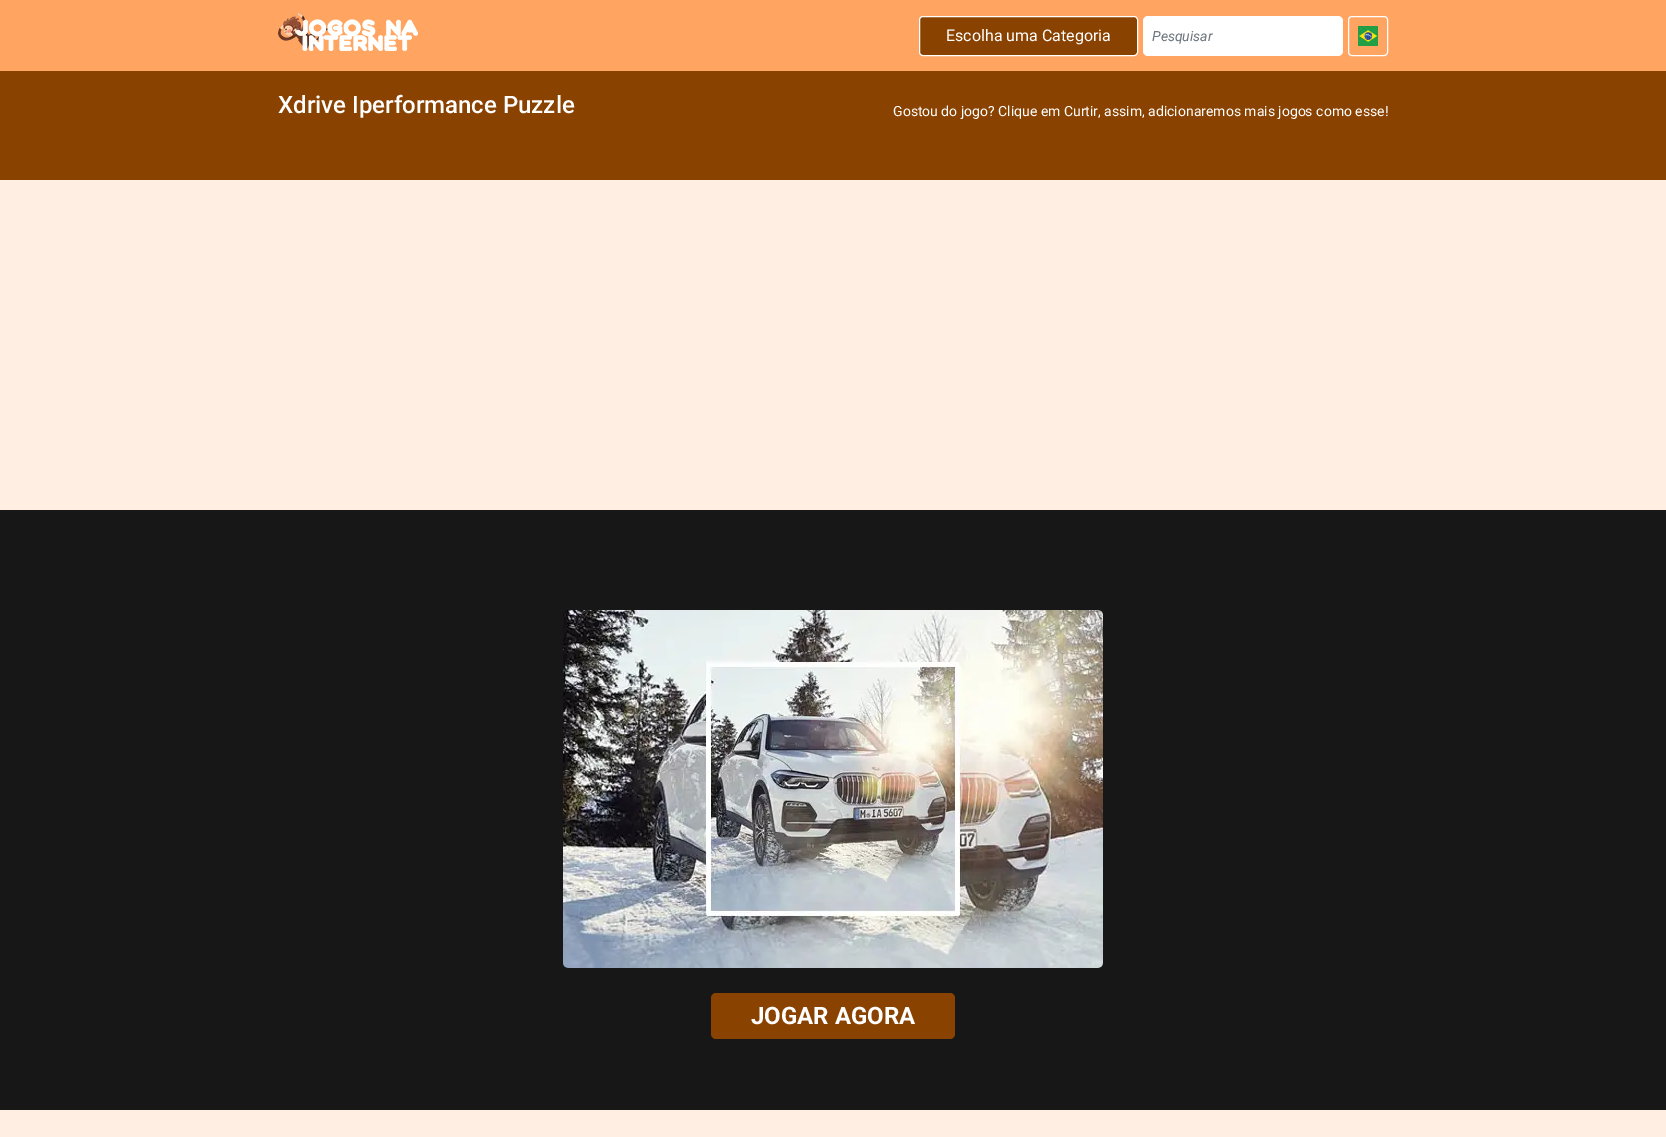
%!PS-Adobe-3.0
%%BoundingBox: 0 0 1666 1137
%%LanguageLevel: 3
%%Pages: 1
%%EndComments
%%BeginProlog
/rrect { 5 dict begin { /r /h /w /y /x } { exch def } forall
  x r add y moveto x w add y 2 copy h add r arct x w add y h add x 1 index r arct
  x y h add x y r arct x y 2 copy exch w add exch r arct closepath end } def
/drawimage { 5 dict begin { /h /w /y /x /name } { exch def } forall
  gsave x y translate w h scale
  w h 8 [w 0 0 h 0 0] name (r) file false 3 colorimage grestore end } def
%%EndProlog
%%BeginSetup
<< /PageSize [1666 1137] >> setpagedevice
%%EndSetup
%%Page: 1 1
0 1137 translate 1 -1 scale
4 setmiterlimit
1 0.933 0.882 setrgbcolor
0 0 1666 1137 rectfill
1 0.647 0.38 setrgbcolor
0 0 1666 71 rectfill
(images/1.raw) 278 13 140 38 drawimage
0.541 0.259 0 setrgbcolor
919.5 16.5 218 39 3.5 rrect gsave fill grestore
1 setgray
stroke
1143 16 200 40 5 rrect fill
1348.5 16.5 39 39 3.5 rrect stroke
(images/2.raw) 1358 26 20 20 drawimage
0.541 0.259 0 setrgbcolor
0 71 1666 109 rectfill
0.09 setgray
0 510 1666 600 rectfill
(images/3.raw) 563 610 540 358 drawimage
0.541 0.259 0 setrgbcolor
711 993 244 46 5 rrect fill
/Roboto-Regular [16 0 0 -16 0 0] selectfont
1 setgray
946 41 moveto (Escolha uma Categoria) show
/Roboto-Italic [14 0 0 -14 0 0] selectfont
0.424 0.459 0.49 setrgbcolor
1152 41 moveto (Pesquisar) show
/Roboto-Medium [24 0 0 -24 0 0] selectfont
1 setgray
278 113 moveto (Xdrive Iperformance Puzzle) show
/Roboto-Regular [14 0 0 -14 0 0] selectfont
893 116 moveto (Gostou do jogo? Clique em Curtir, assim, adicionaremos mais jogos como esse!) show
/Roboto-Bold [24 0 0 -24 0 0] selectfont
751 1024 moveto (JOGAR AGORA) show
showpage
%%EOF
